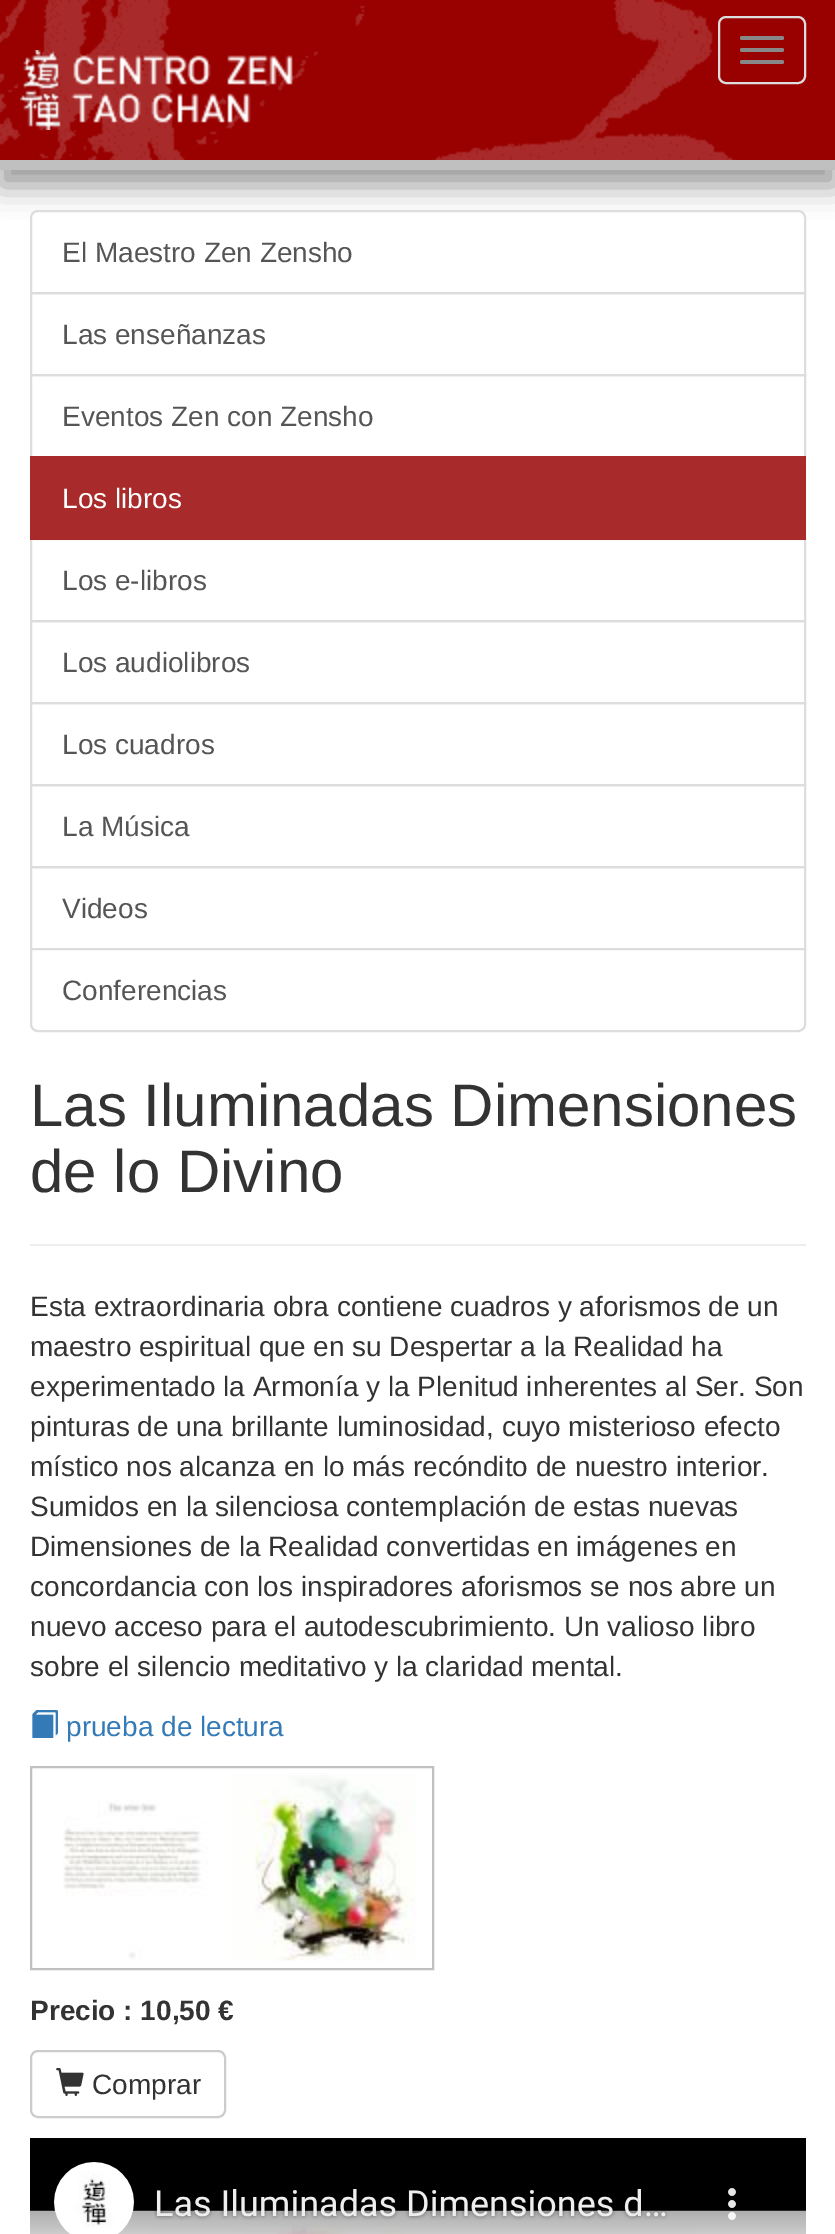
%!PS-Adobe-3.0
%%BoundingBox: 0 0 835 2234
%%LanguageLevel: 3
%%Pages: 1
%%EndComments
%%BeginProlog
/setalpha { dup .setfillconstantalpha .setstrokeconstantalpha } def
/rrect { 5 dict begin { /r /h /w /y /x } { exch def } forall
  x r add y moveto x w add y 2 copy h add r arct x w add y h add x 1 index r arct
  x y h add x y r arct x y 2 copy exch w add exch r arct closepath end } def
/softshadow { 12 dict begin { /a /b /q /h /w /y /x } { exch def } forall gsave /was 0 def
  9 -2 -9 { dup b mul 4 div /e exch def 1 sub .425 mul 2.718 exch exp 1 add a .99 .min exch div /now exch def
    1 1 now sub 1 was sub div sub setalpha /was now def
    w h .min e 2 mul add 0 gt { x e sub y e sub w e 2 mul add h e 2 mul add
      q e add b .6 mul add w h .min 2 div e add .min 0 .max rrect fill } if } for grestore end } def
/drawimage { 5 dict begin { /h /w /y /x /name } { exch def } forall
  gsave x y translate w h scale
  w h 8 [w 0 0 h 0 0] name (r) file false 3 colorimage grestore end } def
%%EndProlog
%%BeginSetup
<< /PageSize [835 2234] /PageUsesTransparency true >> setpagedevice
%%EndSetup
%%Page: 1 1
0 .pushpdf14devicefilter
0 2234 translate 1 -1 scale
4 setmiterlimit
1 setgray
0 0 835 2234 rectfill
0.196 setgray
0 16 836 170 0 15 0.49 softshadow
(images/1.raw) 0 0 835 160 drawimage
0.753 setgray
0 160 835 10 rectfill
(images/2.raw) 20 50 273 80 drawimage
0.867 setgray
2 setlinewidth
719 17 86 66 7 rrect stroke
0.533 setgray
740 36 44 4 2 rrect fill
740 48 44 4 2 rrect fill
740 60 44 4 2 rrect fill
1 setgray
newpath 38 211 moveto 798 211 lineto 802 211 805 214 805 218 curveto 805 293 lineto 31 293 lineto 31 218 lineto 31 214 34 211 38 211 curveto closepath gsave fill grestore
0.867 setgray
stroke
31 293 774 82 rectstroke
31 375 774 82 rectstroke
31 539 774 82 rectstroke
0.663 0.165 0.165 setrgbcolor
30 456 776 84 rectfill
0.867 setgray
31 621 774 82 rectstroke
31 703 774 82 rectstroke
31 785 774 82 rectstroke
31 867 774 82 rectstroke
1 setgray
newpath 31 949 moveto 805 949 lineto 805 1024 lineto 805 1028 802 1031 798 1031 curveto 38 1031 lineto 34 1031 31 1028 31 1024 curveto closepath gsave fill grestore
0.867 setgray
stroke
0.933 setgray
30 1244 776 2 rectfill
(images/3.raw) 32 1710 26 28 drawimage
0.753 setgray
31 1767 402 202 rectstroke
(images/4.raw) 63 1773 353 188 drawimage
0.8 setgray
31 2051 194 66 7 rrect stroke
(images/5.raw) 56 2068 28 28 drawimage
(images/6.raw) 30 2138 776 96 drawimage
/LiberationSans-Regular [28 0 0 -28 0 0] selectfont
0.333 setgray
62 262 moveto (El Maestro Zen Zensho) show
62 344 moveto (Las enseñanzas) show
62 426 moveto (Eventos Zen con Zensho) show
1 setgray
62 508 moveto (Los libros) show
0.333 setgray
62 590 moveto (Los e-libros) show
62 672 moveto (Los audiolibros) show
62 754 moveto (Los cuadros) show
62 836 moveto (La Música) show
62 918 moveto (Videos) show
62 1000 moveto (Conferencias) show
/LiberationSans-Regular [60 0 0 -60 0 0] selectfont
0.2 setgray
30 1126 moveto (Las Iluminadas Dimensiones) show
30 1192 moveto (de lo Divino) show
/LiberationSans-Regular [28 0 0 -28 0 0] selectfont
30 1316 moveto (Esta extraordinaria obra contiene cuadros y aforismos de un) show
30 1356 moveto (maestro espiritual que en su Despertar a la Realidad ha) show
30 1396 moveto (experimentado la Armonía y la Plenitud inherentes al Ser. Son) show
30 1436 moveto (pinturas de una brillante luminosidad, cuyo misterioso efecto) show
30 1476 moveto (místico nos alcanza en lo más recóndito de nuestro interior.) show
30 1516 moveto (Sumidos en la silenciosa contemplación de estas nuevas) show
30 1556 moveto (Dimensiones de la Realidad convertidas en imágenes en) show
30 1596 moveto (concordancia con los inspiradores aforismos se nos abre un) show
30 1636 moveto (nuevo acceso para el autodescubrimiento. Un valioso libro) show
30 1676 moveto (sobre el silencio meditativo y la claridad mental.) show
0.2 0.478 0.718 setrgbcolor
66 1736 moveto (prueba de lectura) show
/LiberationSans-Bold [28 0 0 -28 0 0] selectfont
0.2 setgray
30 2020 moveto (Precio : 10,50 €) show
/LiberationSans-Regular [28 0 0 -28 0 0] selectfont
92 2094 moveto (Comprar) show
.poppdf14devicefilter showpage
%%EOF
